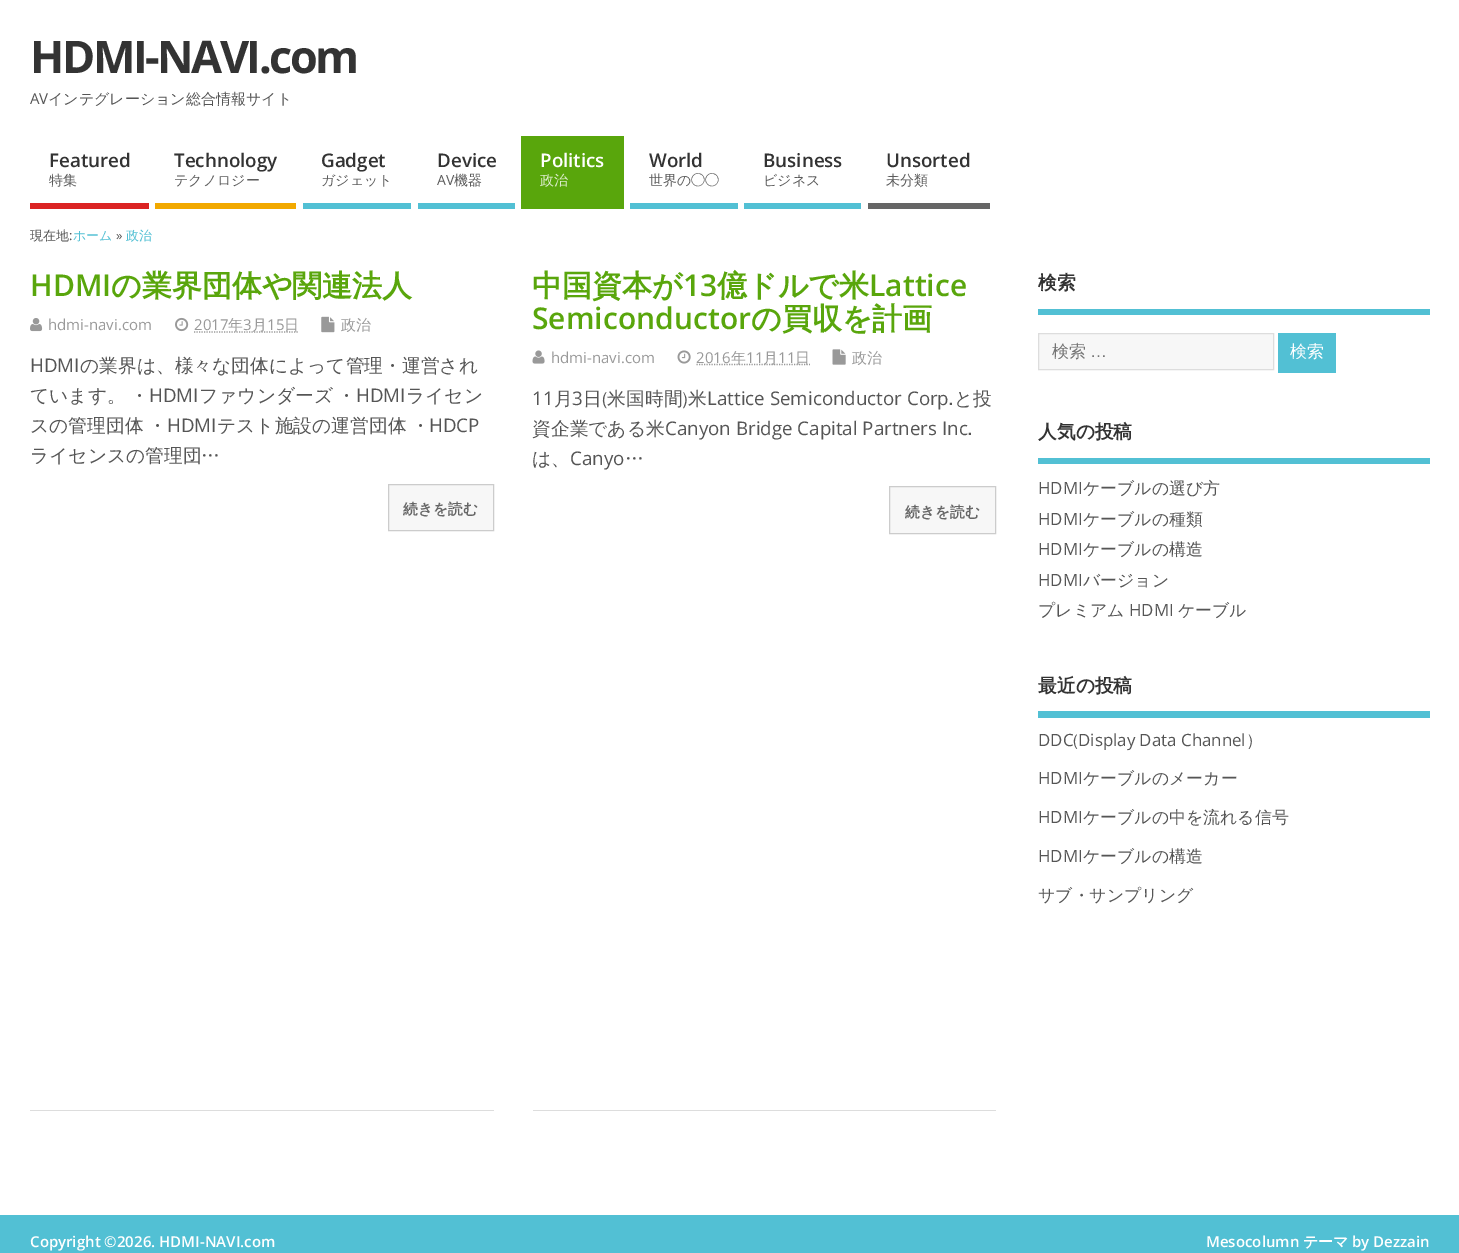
%!PS-Adobe-3.0
%%BoundingBox: 0 0 1459 1253
%%LanguageLevel: 3
%%Pages: 1
%%EndComments
%%BeginProlog
/drawimage { 5 dict begin { /h /w /y /x /name } { exch def } forall
  gsave x y translate w h scale
  w h 8 [w 0 0 h 0 0] name (r) file false 3 colorimage grestore end } def
%%EndProlog
%%BeginSetup
<< /PageSize [1459 1253] >> setpagedevice
%%EndSetup
%%Page: 1 1
0 1253 translate 1 -1 scale
4 setmiterlimit
1 setgray
0 0 1459 1253 rectfill
0.859 0.137 0.137 setrgbcolor
30 203 119 6 rectfill
0.949 0.663 0 setrgbcolor
155 203 141 6 rectfill
0.322 0.753 0.831 setrgbcolor
303 203 108 6 rectfill
418 203 97 6 rectfill
0.349 0.651 0.047 setrgbcolor
521 136 103 73 rectfill
0.322 0.753 0.831 setrgbcolor
630 203 108 6 rectfill
744 203 117 6 rectfill
0.4 setgray
868 203 122 6 rectfill
0.867 setgray
30 1110 464 1 rectfill
(images/1.raw) 30 318 13 14 drawimage
(images/2.raw) 175 317 14 15 drawimage
0.6 setgray
1.2 setlinewidth
[1.25 1.25] 0 setdash
newpath 194 332 moveto 299 332 lineto stroke
(images/3.raw) 321 316 14 17 drawimage
0.969 setgray
newpath 388.5 484.5 moveto 493.5 484.5 lineto 493.5 530.5 lineto 388.5 530.5 lineto closepath gsave fill grestore
0.8 setgray
1 setlinewidth
[] 0 setdash
stroke
0.867 setgray
533 1110 463 1 rectfill
(images/4.raw) 532 350 13 14 drawimage
(images/5.raw) 677 350 14 14 drawimage
0.6 setgray
1.2 setlinewidth
[1.25 1.25] 0 setdash
newpath 696.5 364.5 moveto 810 364.5 lineto stroke
(images/6.raw) 832 349 14 16 drawimage
0.969 setgray
newpath 889.5 486.5 moveto 995.5 486.5 lineto 995.5 533.5 lineto 889.5 533.5 lineto closepath gsave fill grestore
0.8 setgray
1 setlinewidth
[] 0 setdash
stroke
0.322 0.753 0.831 setrgbcolor
1038 309 392 6 rectfill
0.969 setgray
newpath 1038.5 333.5 moveto 1273.5 333.5 lineto 1273.5 369.5 lineto 1038.5 369.5 lineto closepath gsave fill grestore
0.867 setgray
stroke
0.322 0.753 0.831 setrgbcolor
1278 333 58 40 rectfill
1038 458 392 6 rectfill
1038 711 392 7 rectfill
0 1215 1459 38 rectfill
/OpenSans-Bold [45 0 0 -45 0 0] selectfont
0.2 setgray
30 73 moveto -2.5 0 (HDMI-NAVI.com) ashow
/OpenSans-Regular [15 0 0 -15 0 0] selectfont
0.333 setgray
30 104 moveto (AV) show
/WenQuanYiZenHei-Medium [15 0 0 -15 0 0] selectfont
48 104 moveto (インテグレーション総合情報サイト) show
/OpenSans-SemiBold [18.75 0 0 -18.75 0 0] selectfont
0.2 setgray
49 167 moveto (Featured) show
/WenQuanYiZenHei-Medium [14 0 0 -14 0 0] selectfont
0.361 setgray
49 185 moveto (特集) show
/OpenSans-SemiBold [18.75 0 0 -18.75 0 0] selectfont
0.2 setgray
174 167 moveto (Technology) show
/WenQuanYiZenHei-Medium [14 0 0 -14 0 0] selectfont
0.361 setgray
174 185 moveto (テクノロジー) show
/OpenSans-SemiBold [18.75 0 0 -18.75 0 0] selectfont
0.2 setgray
321 167 moveto (Gadget) show
/WenQuanYiZenHei-Medium [14 0 0 -14 0 0] selectfont
0.361 setgray
321 185 moveto (ガジェット) show
/OpenSans-SemiBold [18.75 0 0 -18.75 0 0] selectfont
0.2 setgray
437 167 moveto (Device) show
/OpenSans-Regular [14 0 0 -14 0 0] selectfont
0.361 setgray
437 185 moveto (AV) show
/WenQuanYiZenHei-Medium [14 0 0 -14 0 0] selectfont
454 185 moveto (機器) show
/OpenSans-SemiBold [18.75 0 0 -18.75 0 0] selectfont
1 setgray
540 167 moveto (Politics) show
/WenQuanYiZenHei-Medium [14 0 0 -14 0 0] selectfont
0.871 0.929 0.808 setrgbcolor
540 185 moveto (政治) show
/OpenSans-SemiBold [18.75 0 0 -18.75 0 0] selectfont
0.2 setgray
649 167 moveto (World) show
/WenQuanYiZenHei-Medium [14 0 0 -14 0 0] selectfont
0.361 setgray
649 185 moveto (世界の) show
/IPAPGothic-Regular [14 0 0 -14 0 0] selectfont
691 185 moveto (◯◯) show
/OpenSans-SemiBold [18.75 0 0 -18.75 0 0] selectfont
0.2 setgray
763 167 moveto (Business) show
/WenQuanYiZenHei-Medium [14 0 0 -14 0 0] selectfont
0.361 setgray
763 185 moveto (ビジネス) show
/OpenSans-SemiBold [18.75 0 0 -18.75 0 0] selectfont
0.2 setgray
886 167 moveto (Unsorted) show
/WenQuanYiZenHei-Medium [14 0 0 -14 0 0] selectfont
0.361 setgray
886 185 moveto (未分類) show
/WenQuanYiZenHei-Medium [13 0 0 -13 0 0] selectfont
0.333 setgray
30 240 moveto (現在地) show
/OpenSans-Regular [13 0 0 -13 0 0] selectfont
69 240 moveto (:) show
/WenQuanYiZenHei-Medium [13 0 0 -13 0 0] selectfont
0.322 0.753 0.831 setrgbcolor
73 240 moveto (ホーム) show
/OpenSans-Regular [13 0 0 -13 0 0] selectfont
0.333 setgray
116 240 moveto (») show
/WenQuanYiZenHei-Medium [13 0 0 -13 0 0] selectfont
0.322 0.753 0.831 setrgbcolor
126 240 moveto (政治) show
/OpenSans-SemiBold [30 0 0 -30 0 0] selectfont
0.349 0.651 0.047 setrgbcolor
30 296 moveto (HDMI) show
/WenQuanYiZenHei-Bold [30 0 0 -30 0 0] selectfont
111 296 moveto (の業界団体や関連法人) show
/OpenSans-Regular [15 0 0 -15 0 0] selectfont
0.6 setgray
48 330 moveto (hdmi-navi.com) show
194 330 moveto (2017) show
/WenQuanYiZenHei-Medium [15 0 0 -15 0 0] selectfont
228 330 moveto (年) show
/OpenSans-Regular [15 0 0 -15 0 0] selectfont
243 330 moveto (3) show
/WenQuanYiZenHei-Medium [15 0 0 -15 0 0] selectfont
252 330 moveto (月) show
/OpenSans-Regular [15 0 0 -15 0 0] selectfont
267 330 moveto (15) show
/WenQuanYiZenHei-Medium [15 0 0 -15 0 0] selectfont
284 330 moveto (日) show
341 330 moveto (政治) show
/OpenSans-Regular [18.75 0 0 -18.75 0 0] selectfont
0.333 setgray
30 372 moveto (HDMI) show
/WenQuanYiZenHei-Medium [18.75 0 0 -18.75 0 0] selectfont
80 372 moveto (の業界は、様々な団体によって管理・運営され) show
30 402 moveto -1 0 32 (ています。 ・) widthshow
/OpenSans-Regular [18.75 0 0 -18.75 0 0] selectfont
149 402 moveto (HDMI) show
/WenQuanYiZenHei-Medium [18.75 0 0 -18.75 0 0] selectfont
199 402 moveto -1 0 32 (ファウンダーズ ・) widthshow
/OpenSans-Regular [18.75 0 0 -18.75 0 0] selectfont
356 402 moveto (HDMI) show
/WenQuanYiZenHei-Medium [18.75 0 0 -18.75 0 0] selectfont
406 402 moveto (ライセン) show
30 432 moveto -1 0 32 (スの管理団体 ・) widthshow
/OpenSans-Regular [18.75 0 0 -18.75 0 0] selectfont
167 432 moveto (HDMI) show
/WenQuanYiZenHei-Medium [18.75 0 0 -18.75 0 0] selectfont
217 432 moveto -1 0 32 (テスト施設の運営団体 ・) widthshow
/OpenSans-Regular [18.75 0 0 -18.75 0 0] selectfont
429 432 moveto (HDCP) show
/WenQuanYiZenHei-Medium [18.75 0 0 -18.75 0 0] selectfont
30 462 moveto (ライセンスの管理団…) show
/WenQuanYiZenHei-Bold [14.75 0 0 -14.75 0 0] selectfont
0.4 setgray
403 514 moveto (続きを読む) show
/WenQuanYiZenHei-Bold [30 0 0 -30 0 0] selectfont
0.349 0.651 0.047 setrgbcolor
532 296 moveto (中国資本が) show
/OpenSans-SemiBold [30 0 0 -30 0 0] selectfont
683 296 moveto (13) show
/WenQuanYiZenHei-Bold [30 0 0 -30 0 0] selectfont
717 296 moveto (億ドルで米) show
/OpenSans-SemiBold [30 0 0 -30 0 0] selectfont
869 296 moveto (Lattice) show
532 329 moveto (Semiconductor) show
/WenQuanYiZenHei-Bold [30 0 0 -30 0 0] selectfont
751 329 moveto (の買収を計画) show
/OpenSans-Regular [15 0 0 -15 0 0] selectfont
0.6 setgray
551 363 moveto (hdmi-navi.com) show
696 363 moveto (2016) show
/WenQuanYiZenHei-Medium [15 0 0 -15 0 0] selectfont
731 363 moveto (年) show
/OpenSans-Regular [15 0 0 -15 0 0] selectfont
746 363 moveto (11) show
/WenQuanYiZenHei-Medium [15 0 0 -15 0 0] selectfont
763 363 moveto (月) show
/OpenSans-Regular [15 0 0 -15 0 0] selectfont
778 363 moveto (11) show
/WenQuanYiZenHei-Medium [15 0 0 -15 0 0] selectfont
795 363 moveto (日) show
852 363 moveto (政治) show
/OpenSans-Regular [18.75 0 0 -18.75 0 0] selectfont
0.333 setgray
532 405 moveto (11) show
/WenQuanYiZenHei-Medium [18.75 0 0 -18.75 0 0] selectfont
554 405 moveto (月) show
/OpenSans-Regular [18.75 0 0 -18.75 0 0] selectfont
572 405 moveto (3) show
/WenQuanYiZenHei-Medium [18.75 0 0 -18.75 0 0] selectfont
583 405 moveto (日\(米国時間\)米) show
/OpenSans-Regular [18.75 0 0 -18.75 0 0] selectfont
707 405 moveto (Lattice Semiconductor Corp) show
/WenQuanYiZenHei-Medium [18.75 0 0 -18.75 0 0] selectfont
948 405 moveto (.と投) show
532 435 moveto (資企業である米) show
/OpenSans-Regular [18.75 0 0 -18.75 0 0] selectfont
665 435 moveto (Canyon Bridge Capital Partners Inc) show
/WenQuanYiZenHei-Medium [18.75 0 0 -18.75 0 0] selectfont
967 435 moveto (.) show
532 465 moveto (は、) show
/OpenSans-Regular [18.75 0 0 -18.75 0 0] selectfont
570 465 moveto (Canyo) show
/WenQuanYiZenHei-Medium [18.75 0 0 -18.75 0 0] selectfont
625 465 moveto (…) show
/WenQuanYiZenHei-Bold [14.75 0 0 -14.75 0 0] selectfont
0.4 setgray
905 517 moveto (続きを読む) show
/WenQuanYiZenHei-Bold [18.75 0 0 -18.75 0 0] selectfont
0.2 setgray
1038 289 moveto (検索) show
/WenQuanYiZenHei-Medium [17 0 0 -17 0 0] selectfont
0.459 setgray
1052 357 moveto (検索) show
/LiberationSans-Regular [17 0 0 -17 0 0] selectfont
1090 357 moveto (…) show
/WenQuanYiZenHei-Medium [16.9 0 0 -16.9 0 0] selectfont
1 setgray
1290 357 moveto (検索) show
/WenQuanYiZenHei-Bold [18.75 0 0 -18.75 0 0] selectfont
0.2 setgray
1038 438 moveto (人気の投稿) show
/OpenSans-Regular [16.9 0 0 -16.9 0 0] selectfont
0.333 setgray
1038 494 moveto (HDMI) show
/WenQuanYiZenHei-Medium [16.9 0 0 -16.9 0 0] selectfont
1083 494 moveto (ケーブルの選び方) show
/OpenSans-Regular [16.9 0 0 -16.9 0 0] selectfont
1038 525 moveto (HDMI) show
/WenQuanYiZenHei-Medium [16.9 0 0 -16.9 0 0] selectfont
1083 525 moveto (ケーブルの種類) show
/OpenSans-Regular [16.9 0 0 -16.9 0 0] selectfont
1038 555 moveto (HDMI) show
/WenQuanYiZenHei-Medium [16.9 0 0 -16.9 0 0] selectfont
1083 555 moveto (ケーブルの構造) show
/OpenSans-Regular [16.9 0 0 -16.9 0 0] selectfont
1038 586 moveto (HDMI) show
/WenQuanYiZenHei-Medium [16.9 0 0 -16.9 0 0] selectfont
1083 586 moveto (バージョン) show
1038 616 moveto (プレミアム) show
/OpenSans-Regular [16.9 0 0 -16.9 0 0] selectfont
1129 616 moveto (HDMI) show
/WenQuanYiZenHei-Medium [16.9 0 0 -16.9 0 0] selectfont
1178 616 moveto (ケーブル) show
/WenQuanYiZenHei-Bold [18.75 0 0 -18.75 0 0] selectfont
0.2 setgray
1038 692 moveto (最近の投稿) show
/OpenSans-Regular [16.9 0 0 -16.9 0 0] selectfont
0.333 setgray
1038 746 moveto (DDC) show
/WenQuanYiZenHei-Medium [16.9 0 0 -16.9 0 0] selectfont
1073 746 moveto (\() show
/OpenSans-Regular [16.9 0 0 -16.9 0 0] selectfont
1078 746 moveto (Display Data Channel) show
/WenQuanYiZenHei-Medium [16.9 0 0 -16.9 0 0] selectfont
1246 746 moveto (）) show
/OpenSans-Regular [16.9 0 0 -16.9 0 0] selectfont
1038 784 moveto (HDMI) show
/WenQuanYiZenHei-Medium [16.9 0 0 -16.9 0 0] selectfont
1083 784 moveto (ケーブルのメーカー) show
/OpenSans-Regular [16.9 0 0 -16.9 0 0] selectfont
1038 823 moveto (HDMI) show
/WenQuanYiZenHei-Medium [16.9 0 0 -16.9 0 0] selectfont
1083 823 moveto (ケーブルの中を流れる信号) show
/OpenSans-Regular [16.9 0 0 -16.9 0 0] selectfont
1038 862 moveto (HDMI) show
/WenQuanYiZenHei-Medium [16.9 0 0 -16.9 0 0] selectfont
1083 862 moveto (ケーブルの構造) show
1038 901 moveto (サブ・サンプリング) show
/OpenSans-SemiBold [15 0 0 -15 0 0] selectfont
1 setgray
30 1247 moveto (Copyright ©2026. HDMI-NAVI.com) show
1206 1247 moveto (Mesocolumn) show
/WenQuanYiZenHei-Bold [15 0 0 -15 0 0] selectfont
1303 1247 moveto (テーマ) show
/OpenSans-SemiBold [15 0 0 -15 0 0] selectfont
1352 1247 moveto (by Dezzain) show
showpage
%%EOF
